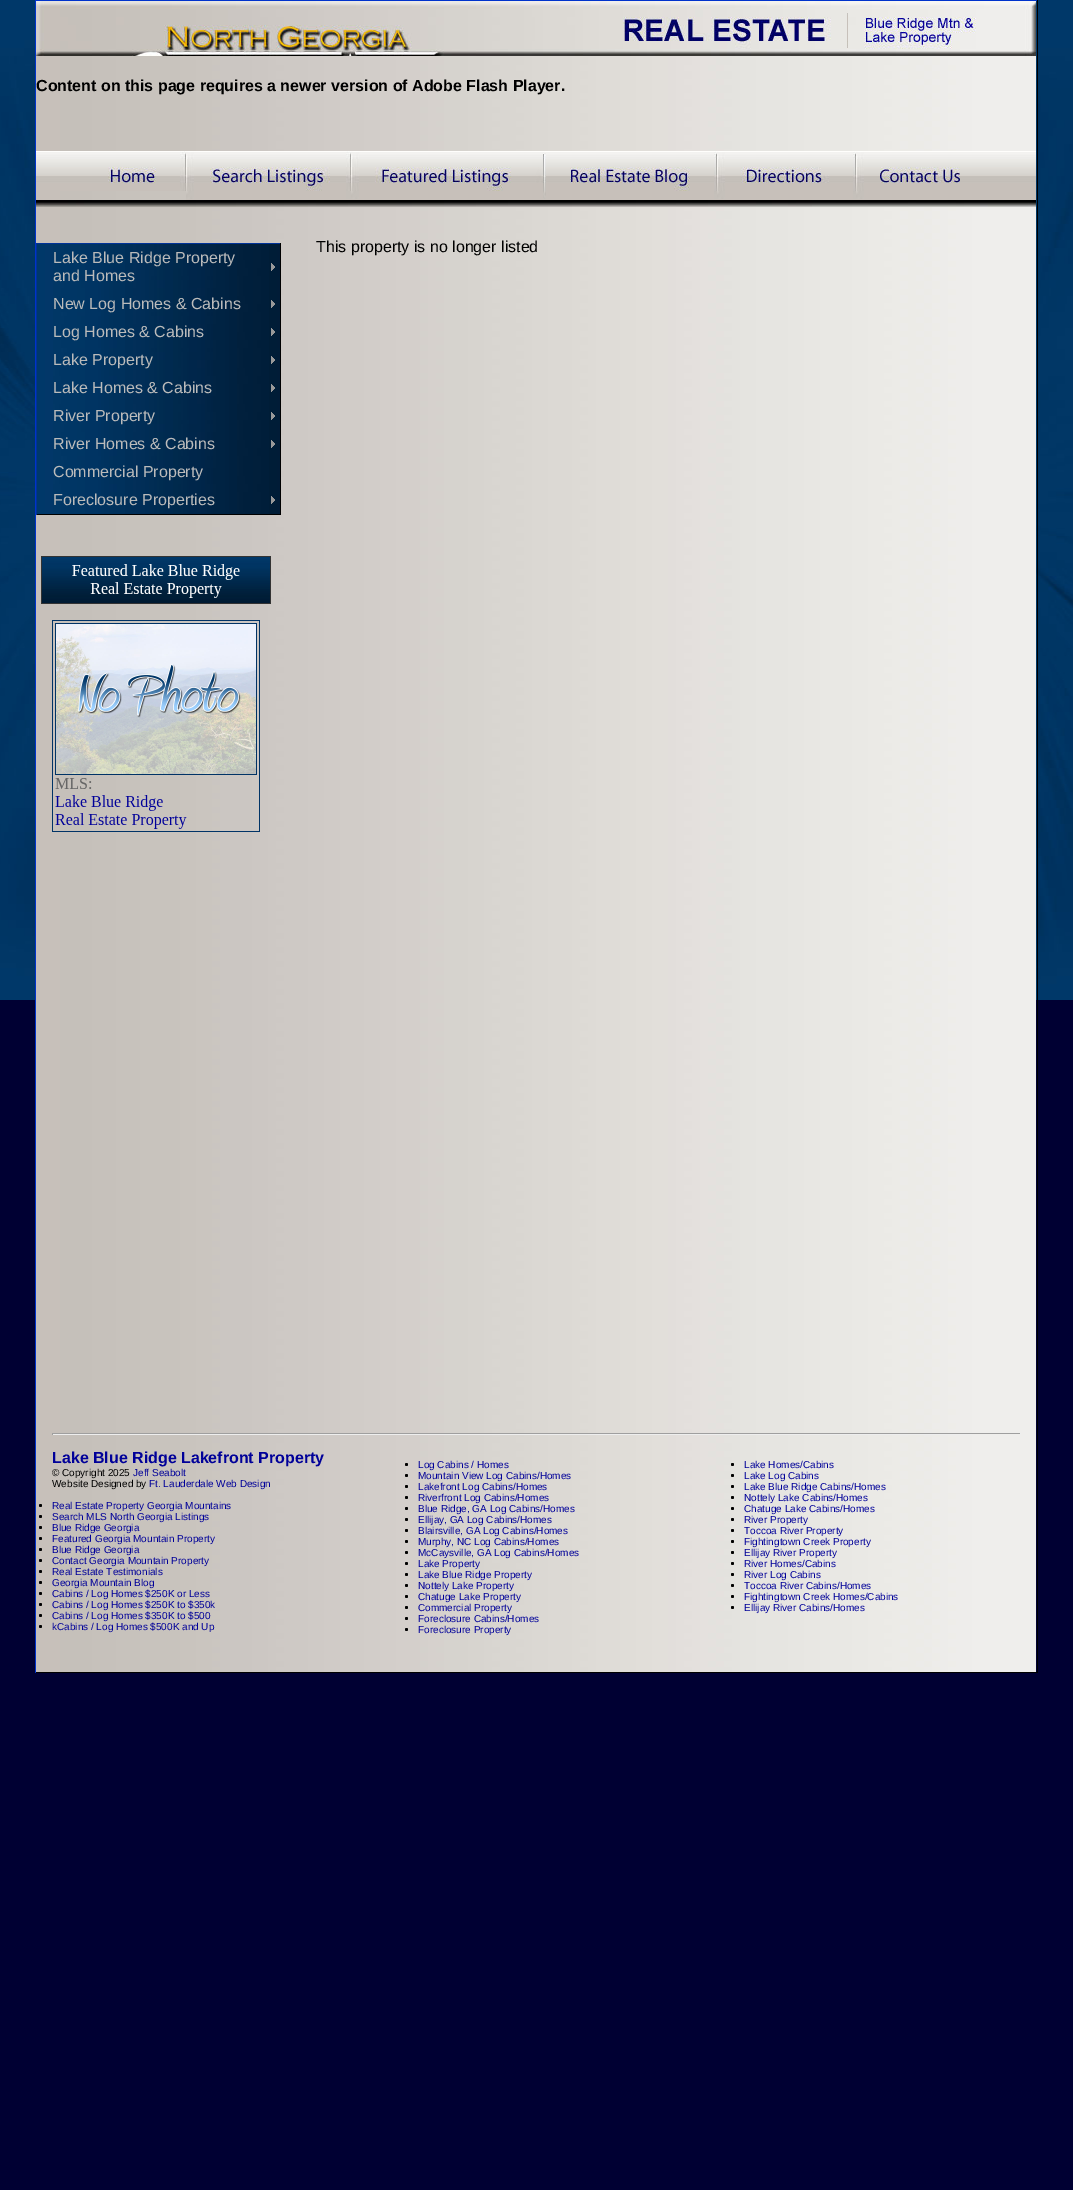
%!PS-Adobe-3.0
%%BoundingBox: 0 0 1073 2190
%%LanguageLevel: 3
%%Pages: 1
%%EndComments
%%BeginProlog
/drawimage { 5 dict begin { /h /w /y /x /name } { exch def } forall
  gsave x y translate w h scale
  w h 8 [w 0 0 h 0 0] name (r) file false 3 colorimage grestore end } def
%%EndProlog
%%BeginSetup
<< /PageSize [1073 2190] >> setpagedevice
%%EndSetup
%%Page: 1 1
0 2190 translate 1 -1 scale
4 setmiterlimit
0 0 0.2 setrgbcolor
0 0 1073 2190 rectfill
(images/1.raw) 0 0 1073 1000 drawimage
(images/2.raw) 36 56 1000 1616 drawimage
0 0.2 0.8 setrgbcolor
35 0 1003 1 rectfill
0 setgray
1037 0 1 1673 rectfill
35 1672 1003 1 rectfill
0 0.2 0.8 setrgbcolor
35 0 1 1673 rectfill
(images/3.raw) 36 1 499 55 drawimage
(images/4.raw) 535 1 313 55 drawimage
(images/5.raw) 848 1 188 55 drawimage
(images/6.raw) 36 151 150 40 drawimage
(images/7.raw) 186 151 165 49 drawimage
(images/8.raw) 351 151 195 49 drawimage
(images/9.raw) 546 151 171 49 drawimage
(images/10.raw) 717 151 139 49 drawimage
(images/11.raw) 856 151 180 49 drawimage
(images/12.raw) 36 200 1000 7 drawimage
(images/13.raw) 37 244 243 270 drawimage
0 0.2 0.6 setrgbcolor
36 243 245 1 rectfill
0 setgray
280 243 1 272 rectfill
36 514 245 1 rectfill
0 0.2 0.6 setrgbcolor
36 243 1 272 rectfill
(images/14.raw) 271 263 4 8 drawimage
(images/14.raw) 271 300 4 8 drawimage
(images/14.raw) 271 328 4 8 drawimage
(images/14.raw) 271 356 4 8 drawimage
(images/14.raw) 271 384 4 8 drawimage
(images/14.raw) 271 412 4 8 drawimage
(images/14.raw) 271 440 4 8 drawimage
(images/14.raw) 271 496 4 8 drawimage
(images/15.raw) 41 556 230 276 drawimage
0.624 setgray
52 1433 969 1 rectfill
0.933 setgray
1020 1433 1 2 rectfill
52 1434 920 1 rectfill
0.624 setgray
52 1433 1 2 rectfill
0 setgray
newpath 40.5 1505.5 1.5 0 360 arc closepath fill
newpath 40.5 1516.5 1.5 0 360 arc closepath fill
newpath 40.5 1527.5 1.5 0 360 arc closepath fill
newpath 40.5 1538.5 1.5 0 360 arc closepath fill
newpath 40.5 1549.5 1.5 0 360 arc closepath fill
newpath 40.5 1560.5 1.5 0 360 arc closepath fill
newpath 40.5 1571.5 1.5 0 360 arc closepath fill
newpath 40.5 1582.5 1.5 0 360 arc closepath fill
newpath 40.5 1593.5 1.5 0 360 arc closepath fill
newpath 40.5 1604.5 1.5 0 360 arc closepath fill
newpath 40.5 1615.5 1.5 0 360 arc closepath fill
newpath 40.5 1626.5 1.5 0 360 arc closepath fill
newpath 406.5 1464.5 1.5 0 360 arc closepath fill
newpath 406.5 1475.5 1.5 0 360 arc closepath fill
newpath 406.5 1486.5 1.5 0 360 arc closepath fill
newpath 406.5 1497.5 1.5 0 360 arc closepath fill
newpath 406.5 1508.5 1.5 0 360 arc closepath fill
newpath 406.5 1519.5 1.5 0 360 arc closepath fill
newpath 406.5 1530.5 1.5 0 360 arc closepath fill
newpath 406.5 1541.5 1.5 0 360 arc closepath fill
newpath 406.5 1552.5 1.5 0 360 arc closepath fill
newpath 406.5 1563.5 1.5 0 360 arc closepath fill
newpath 406.5 1574.5 1.5 0 360 arc closepath fill
newpath 406.5 1585.5 1.5 0 360 arc closepath fill
newpath 406.5 1596.5 1.5 0 360 arc closepath fill
newpath 406.5 1607.5 1.5 0 360 arc closepath fill
newpath 406.5 1618.5 1.5 0 360 arc closepath fill
newpath 406.5 1629.5 1.5 0 360 arc closepath fill
newpath 732.5 1464.5 1.5 0 360 arc closepath fill
newpath 732.5 1475.5 1.5 0 360 arc closepath fill
newpath 732.5 1486.5 1.5 0 360 arc closepath fill
newpath 732.5 1497.5 1.5 0 360 arc closepath fill
newpath 732.5 1508.5 1.5 0 360 arc closepath fill
newpath 732.5 1519.5 1.5 0 360 arc closepath fill
newpath 732.5 1530.5 1.5 0 360 arc closepath fill
newpath 732.5 1541.5 1.5 0 360 arc closepath fill
newpath 732.5 1552.5 1.5 0 360 arc closepath fill
newpath 732.5 1563.5 1.5 0 360 arc closepath fill
newpath 732.5 1574.5 1.5 0 360 arc closepath fill
newpath 732.5 1585.5 1.5 0 360 arc closepath fill
newpath 732.5 1596.5 1.5 0 360 arc closepath fill
newpath 732.5 1607.5 1.5 0 360 arc closepath fill
/LiberationSans-Bold [16 0 0 -16 0 0] selectfont
36 91 moveto (Content on this page requires a newer version of Adobe Flash Player.) show
/LiberationSans-Regular [16 0 0 -16 0 0] selectfont
316 252 moveto (This property is no longer listed) show
0.733 setgray
53 263 moveto (Lake Blue Ridge Property) show
53 281 moveto (and Homes) show
53 309 moveto (New Log Homes & Cabins) show
53 337 moveto (Log Homes & Cabins) show
53 365 moveto (Lake Property) show
53 393 moveto (Lake Homes & Cabins) show
53 421 moveto (River Property) show
53 449 moveto (River Homes & Cabins) show
53 477 moveto (Commercial Property) show
53 505 moveto (Foreclosure Properties) show
/LiberationSans-Bold [16 0 0 -16 0 0] selectfont
0 0 0.6 setrgbcolor
52 1463 moveto (Lake Blue Ridge Lakefront Property) show
/LiberationSans-Regular [10 0 0 -10 0 0] selectfont
0 setgray
52 1476 moveto (© Copyright 2025) show
0 0 0.6 setrgbcolor
133 1476 moveto (Jeff Seabolt) show
0 setgray
52 1487 moveto (Website Designed by) show
0 0 0.6 setrgbcolor
149 1487 moveto (Ft. Lauderdale Web Design) show
52 1509 moveto (Real Estate Property Georgia Mountains) show
52 1520 moveto (Search MLS North Georgia Listings) show
52 1531 moveto (Blue Ridge Georgia) show
52 1542 moveto (Featured Georgia Mountain Property) show
52 1553 moveto (Blue Ridge Georgia) show
52 1564 moveto (Contact Georgia Mountain Property) show
52 1575 moveto (Real Estate Testimonials) show
52 1586 moveto (Georgia Mountain Blog) show
52 1597 moveto (Cabins / Log Homes $250K or Less) show
52 1608 moveto (Cabins / Log Homes $250K to $350k) show
52 1619 moveto (Cabins / Log Homes $350K to $500) show
52 1630 moveto (kCabins / Log Homes $500K and Up) show
418 1468 moveto (Log Cabins / Homes) show
418 1479 moveto (Mountain View Log Cabins/Homes) show
418 1490 moveto (Lakefront Log Cabins/Homes) show
418 1501 moveto (Riverfront Log Cabins/Homes) show
418 1512 moveto (Blue Ridge, GA Log Cabins/Homes) show
418 1523 moveto (Ellijay, GA Log Cabins/Homes) show
418 1534 moveto (Blairsville, GA Log Cabins/Homes) show
418 1545 moveto (Murphy, NC Log Cabins/Homes) show
418 1556 moveto (McCaysville, GA Log Cabins/Homes) show
418 1567 moveto (Lake Property) show
418 1578 moveto (Lake Blue Ridge Property) show
418 1589 moveto (Nottely Lake Property) show
418 1600 moveto (Chatuge Lake Property) show
418 1611 moveto (Commercial Property) show
418 1622 moveto (Foreclosure Cabins/Homes) show
418 1633 moveto (Foreclosure Property) show
744 1468 moveto (Lake Homes/Cabins) show
744 1479 moveto (Lake Log Cabins) show
744 1490 moveto (Lake Blue Ridge Cabins/Homes) show
744 1501 moveto (Nottely Lake Cabins/Homes) show
744 1512 moveto (Chatuge Lake Cabins/Homes) show
744 1523 moveto (River Property) show
744 1534 moveto (Toccoa River Property) show
744 1545 moveto (Fightingtown Creek Property) show
744 1556 moveto (Ellijay River Property) show
744 1567 moveto (River Homes/Cabins) show
744 1578 moveto (River Log Cabins) show
744 1589 moveto (Toccoa River Cabins/Homes) show
744 1600 moveto (Fightingtown Creek Homes/Cabins) show
744 1611 moveto (Ellijay River Cabins/Homes) show
showpage
%%EOF
